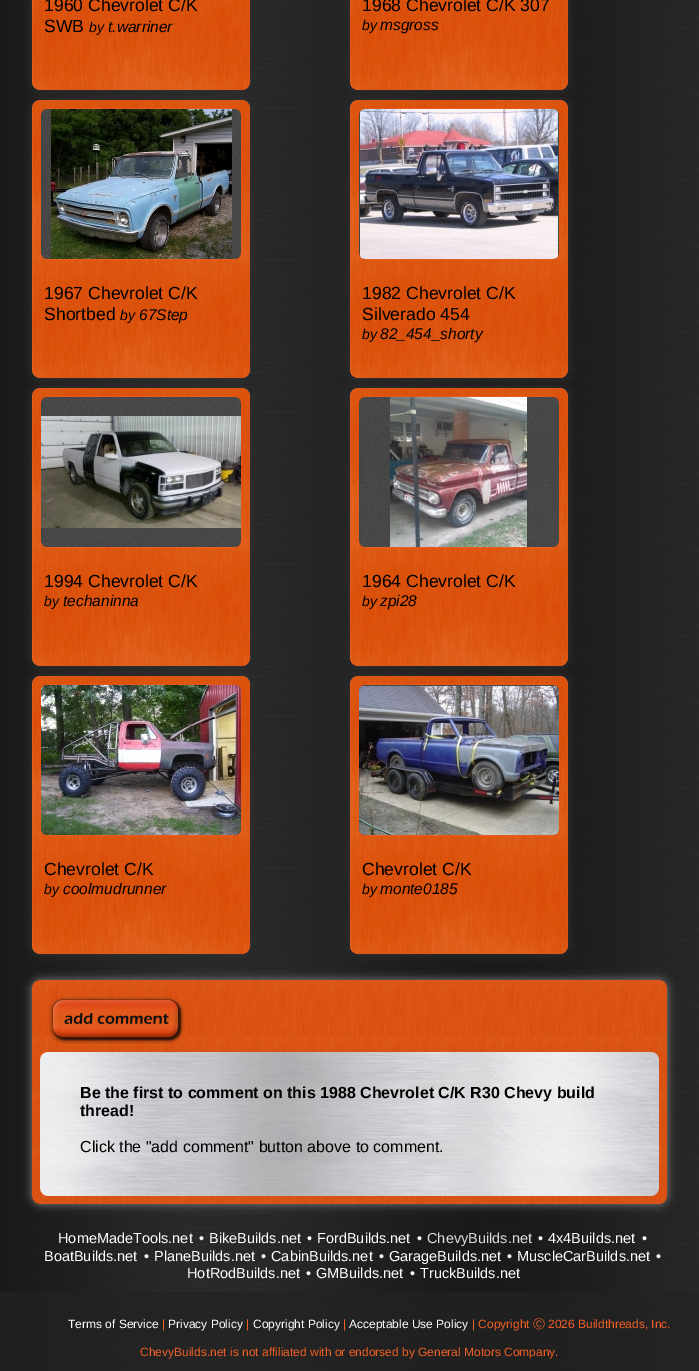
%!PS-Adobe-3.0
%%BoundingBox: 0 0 699 1371
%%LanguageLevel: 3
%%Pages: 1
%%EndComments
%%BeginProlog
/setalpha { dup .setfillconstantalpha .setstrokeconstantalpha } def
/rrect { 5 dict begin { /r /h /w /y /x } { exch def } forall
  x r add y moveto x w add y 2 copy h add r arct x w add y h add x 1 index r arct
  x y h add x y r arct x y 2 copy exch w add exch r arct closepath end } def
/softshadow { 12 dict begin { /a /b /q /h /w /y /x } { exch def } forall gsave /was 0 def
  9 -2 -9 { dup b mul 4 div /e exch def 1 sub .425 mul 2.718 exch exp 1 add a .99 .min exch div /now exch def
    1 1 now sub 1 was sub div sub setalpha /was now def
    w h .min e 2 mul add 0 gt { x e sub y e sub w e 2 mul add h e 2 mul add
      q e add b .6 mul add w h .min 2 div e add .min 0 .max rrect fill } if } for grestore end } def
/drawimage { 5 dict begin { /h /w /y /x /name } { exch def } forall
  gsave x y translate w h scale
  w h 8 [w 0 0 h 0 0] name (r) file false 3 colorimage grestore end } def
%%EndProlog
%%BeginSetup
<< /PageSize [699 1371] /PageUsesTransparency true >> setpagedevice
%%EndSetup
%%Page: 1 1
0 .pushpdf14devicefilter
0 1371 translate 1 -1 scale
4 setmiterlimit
1 setgray
0 0 699 1371 rectfill
(images/1.raw) 0 0 699 1371 drawimage
0.2 setgray
32 -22 218 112 8 4.5 1 softshadow
0.941 0.376 0.141 setrgbcolor
32 -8 218 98 8 rrect fill
(images/2.raw) 32 0 218 90 drawimage
0.2 setgray
350 -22 218 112 8 4.5 1 softshadow
0.941 0.376 0.141 setrgbcolor
350 -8 218 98 8 rrect fill
(images/3.raw) 350 0 218 90 drawimage
0.2 setgray
32 100 218 278 8 4.5 1 softshadow
0.941 0.376 0.141 setrgbcolor
32 100 218 278 8 rrect fill
(images/4.raw) 32 100 218 278 drawimage
(images/5.raw) 41 109 200 150 drawimage
(images/6.raw) 51 109 181 150 drawimage
0.2 setgray
350 100 218 278 8 4.5 1 softshadow
0.941 0.376 0.141 setrgbcolor
350 100 218 278 8 rrect fill
(images/7.raw) 350 100 218 278 drawimage
(images/5.raw) 359 109 200 150 drawimage
(images/8.raw) 360 109 198 150 drawimage
0.2 setgray
32 388 218 278 8 4.5 1 softshadow
0.941 0.376 0.141 setrgbcolor
32 388 218 278 8 rrect fill
(images/9.raw) 32 388 218 278 drawimage
(images/5.raw) 41 397 200 150 drawimage
(images/10.raw) 41 416 200 112 drawimage
0.2 setgray
350 388 218 278 8 4.5 1 softshadow
0.941 0.376 0.141 setrgbcolor
350 388 218 278 8 rrect fill
(images/11.raw) 350 388 218 278 drawimage
(images/5.raw) 359 397 200 150 drawimage
(images/12.raw) 390 397 137 150 drawimage
0.2 setgray
32 676 218 278 8 4.5 1 softshadow
0.941 0.376 0.141 setrgbcolor
32 676 218 278 8 rrect fill
(images/13.raw) 32 676 218 278 drawimage
(images/5.raw) 41 685 200 150 drawimage
(images/14.raw) 41 685 200 150 drawimage
0.2 setgray
350 676 218 278 8 4.5 1 softshadow
0.941 0.376 0.141 setrgbcolor
350 676 218 278 8 rrect fill
(images/15.raw) 350 676 218 278 drawimage
(images/5.raw) 359 685 200 150 drawimage
(images/16.raw) 359 686 200 149 drawimage
0.518 setgray
32 980 635 224 8 4.5 1 softshadow
(images/17.raw) 32 980 635 224 drawimage
(images/18.raw) 48 996 137 48 drawimage
(images/19.raw) 40 1052 619 144 drawimage
0.7 setalpha
0.133 setgray
0 1292 699 79 rectfill
/LiberationSans-Regular [17.6 0 0 -17.6 0 0] selectfont
1 setalpha
0 setgray
44 11 moveto (1960 Chevrolet C/K) show
44 32 moveto (SWB) show
/LiberationSans-Italic [14 0 0 -14 0 0] selectfont
89 32 moveto (by) show
/LiberationSans-Italic [15.5 0 0 -15.5 0 0] selectfont
108 32 moveto (t.warriner) show
/LiberationSans-Regular [17.6 0 0 -17.6 0 0] selectfont
362 11 moveto (1968 Chevrolet C/K 307) show
/LiberationSans-Italic [14 0 0 -14 0 0] selectfont
362 30 moveto (by) show
/LiberationSans-Italic [15.5 0 0 -15.5 0 0] selectfont
380 30 moveto (msgross) show
/LiberationSans-Regular [17.6 0 0 -17.6 0 0] selectfont
44 299 moveto (1967 Chevrolet C/K) show
44 320 moveto (Shortbed) show
/LiberationSans-Italic [14 0 0 -14 0 0] selectfont
120 320 moveto (by) show
/LiberationSans-Italic [15.5 0 0 -15.5 0 0] selectfont
139 320 moveto (67Step) show
/LiberationSans-Regular [17.6 0 0 -17.6 0 0] selectfont
362 299 moveto (1982 Chevrolet C/K) show
362 320 moveto (Silverado 454) show
/LiberationSans-Italic [14 0 0 -14 0 0] selectfont
362 339 moveto (by) show
/LiberationSans-Italic [15.5 0 0 -15.5 0 0] selectfont
380 339 moveto (82_454_shorty) show
/LiberationSans-Regular [17.6 0 0 -17.6 0 0] selectfont
44 587 moveto (1994 Chevrolet C/K) show
/LiberationSans-Italic [14 0 0 -14 0 0] selectfont
44 606 moveto (by) show
/LiberationSans-Italic [15.5 0 0 -15.5 0 0] selectfont
63 606 moveto (techaninna) show
/LiberationSans-Regular [17.6 0 0 -17.6 0 0] selectfont
362 587 moveto (1964 Chevrolet C/K) show
/LiberationSans-Italic [14 0 0 -14 0 0] selectfont
362 606 moveto (by) show
/LiberationSans-Italic [15.5 0 0 -15.5 0 0] selectfont
380 606 moveto (zpi28) show
/LiberationSans-Regular [17.6 0 0 -17.6 0 0] selectfont
44 875 moveto (Chevrolet C/K) show
/LiberationSans-Italic [14 0 0 -14 0 0] selectfont
44 894 moveto (by) show
/LiberationSans-Italic [15.5 0 0 -15.5 0 0] selectfont
63 894 moveto (coolmudrunner) show
/LiberationSans-Regular [17.6 0 0 -17.6 0 0] selectfont
362 875 moveto (Chevrolet C/K) show
/LiberationSans-Italic [14 0 0 -14 0 0] selectfont
362 894 moveto (by) show
/LiberationSans-Italic [15.5 0 0 -15.5 0 0] selectfont
380 894 moveto (monte0185) show
/LiberationSans-Bold [16 0 0 -16 0 0] selectfont
80 1098 moveto (Be the first to comment on this 1988 Chevrolet C/K R30 Chevy build) show
80 1116 moveto (thread!) show
/LiberationSans-Regular [16 0 0 -16 0 0] selectfont
80 1152 moveto (Click the "add comment" button above to comment.) show
/LiberationSans-Regular [14.5 0 0 -14.5 0 0] selectfont
1 setgray
58 1243 moveto (HomeMadeTools.net) show
199 1243 moveto (•) show
209 1243 moveto (BikeBuilds.net) show
307 1243 moveto (•) show
317 1243 moveto (FordBuilds.net) show
417 1243 moveto (•) show
0.867 setgray
427 1243 moveto (ChevyBuilds.net) show
1 setgray
538 1243 moveto (•) show
548 1243 moveto (4x4Builds.net) show
642 1243 moveto (•) show
44 1261 moveto (BoatBuilds.net) show
144 1261 moveto (•) show
154 1261 moveto (PlaneBuilds.net) show
261 1261 moveto (•) show
271 1261 moveto (CabinBuilds.net) show
379 1261 moveto (•) show
389 1261 moveto (GarageBuilds.net) show
507 1261 moveto (•) show
517 1261 moveto (MuscleCarBuilds.net) show
656 1261 moveto (•) show
187 1278 moveto (HotRodBuilds.net) show
306 1278 moveto (•) show
316 1278 moveto (GMBuilds.net) show
410 1278 moveto (•) show
420 1278 moveto (TruckBuilds.net) show
/LiberationSans-Regular [12 0 0 -12 0 0] selectfont
68 1328 moveto (Terms of Service) show
0.941 0.376 0.141 setrgbcolor
162 1328 moveto (|) show
1 setgray
168 1328 moveto (Privacy Policy) show
0.941 0.376 0.141 setrgbcolor
246 1328 moveto (|) show
1 setgray
253 1328 moveto (Copyright Policy) show
0.941 0.376 0.141 setrgbcolor
343 1328 moveto (|) show
1 setgray
349 1328 moveto (Acceptable Use Policy) show
0.941 0.376 0.141 setrgbcolor
472 1328 moveto (| Copyright) show
/WenQuanYiZenHei-Medium [12 0 0 -12 0 0] selectfont
533 1328 moveto (Ⓒ) show
/LiberationSans-Regular [12 0 0 -12 0 0] selectfont
548 1328 moveto (2026 Buildthreads, Inc.) show
140 1356 moveto (ChevyBuilds.net is not affiliated with or endorsed by General Motors Company.) show
.poppdf14devicefilter showpage
%%EOF
